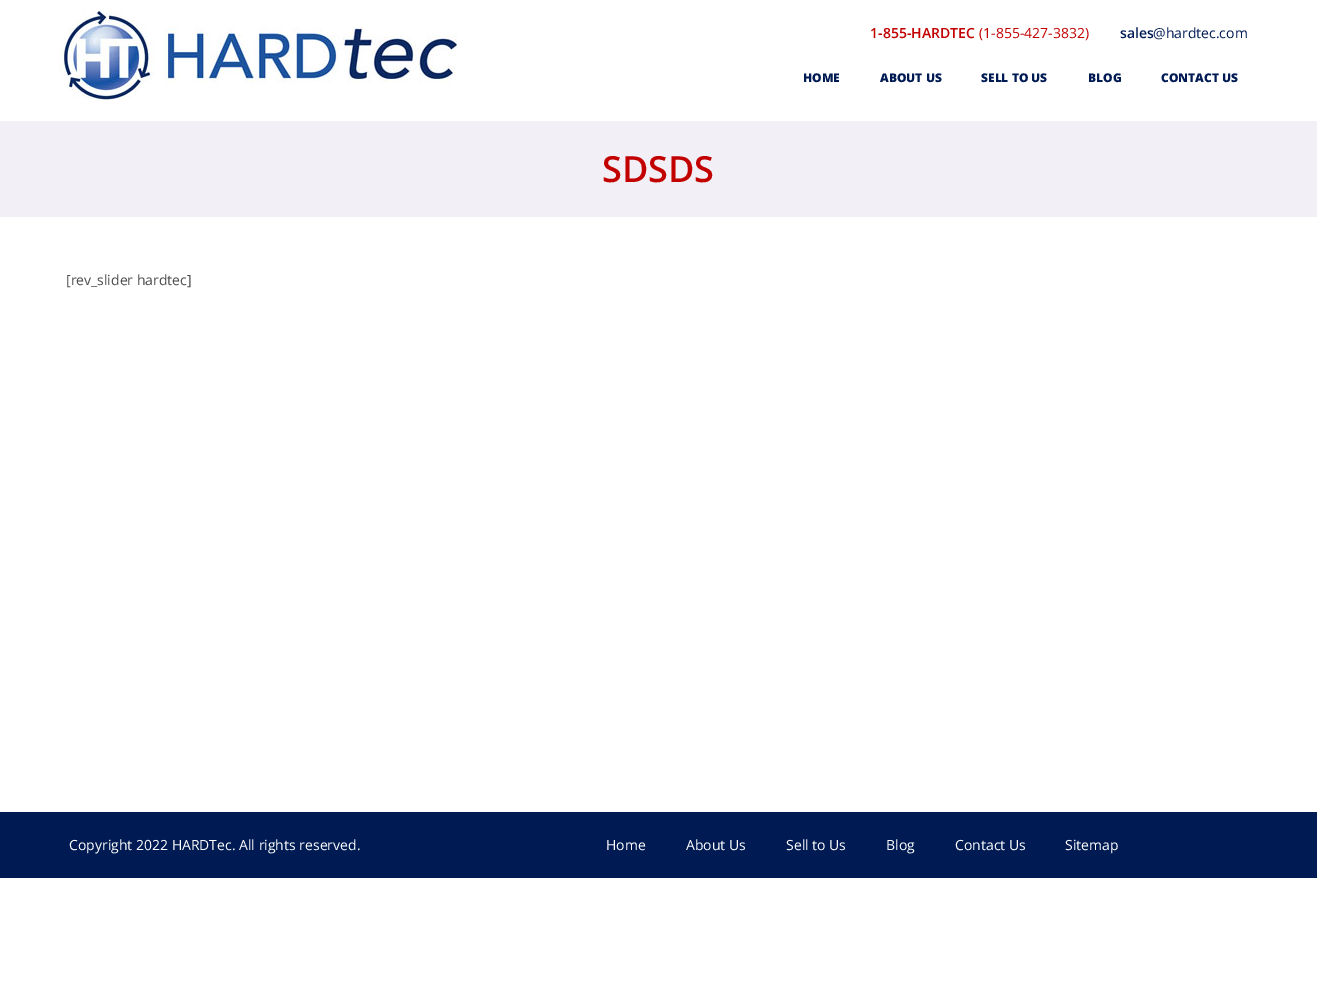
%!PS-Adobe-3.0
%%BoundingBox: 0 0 1317 991
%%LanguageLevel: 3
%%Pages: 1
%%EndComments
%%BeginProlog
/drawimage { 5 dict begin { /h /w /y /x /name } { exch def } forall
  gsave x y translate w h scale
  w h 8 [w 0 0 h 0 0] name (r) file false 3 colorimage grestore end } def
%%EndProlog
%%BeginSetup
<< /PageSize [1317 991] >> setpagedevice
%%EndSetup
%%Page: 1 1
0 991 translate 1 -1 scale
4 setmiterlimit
1 setgray
0 0 1317 991 rectfill
(images/1.raw) 59 11 398 89 drawimage
0.949 0.941 0.965 setrgbcolor
0 121 1317 96 rectfill
0 0.106 0.329 setrgbcolor
0 812 1317 66 rectfill
/OpenSans-SemiBold [14 0 0 -14 0 0] selectfont
0.761 0 0 setrgbcolor
870 38 moveto (1-855-HARDTEC) show
/OpenSans-Regular [14 0 0 -14 0 0] selectfont
979 38 moveto (\(1-855-427-3832\)) show
/OpenSans-SemiBold [14 0 0 -14 0 0] selectfont
0 0.106 0.329 setrgbcolor
1120 38 moveto (sales) show
/OpenSans-Regular [14 0 0 -14 0 0] selectfont
1153 38 moveto (@hardtec.com) show
/OpenSans-ExtraBold [12 0 0 -12 0 0] selectfont
803 82 moveto (HOME) show
880 82 moveto (ABOUT US) show
981 82 moveto (SELL TO US) show
1088 82 moveto (BLOG) show
1161 82 moveto (CONTACT US) show
/OpenSans-SemiBold [36 0 0 -36 0 0] selectfont
0.761 0 0 setrgbcolor
602 182 moveto (SDSDS) show
/OpenSans-Regular [14 0 0 -14 0 0] selectfont
0.29 setgray
66 285 moveto ([rev_slider hardtec]) show
1 setgray
69 850 moveto (Copyright 2022 HARDTec. All rights reserved.) show
606 850 moveto (Home) show
686 850 moveto (About Us) show
786 850 moveto (Sell to Us) show
886 850 moveto (Blog) show
955 850 moveto (Contact Us) show
1065 850 moveto (Sitemap) show
showpage
%%EOF
